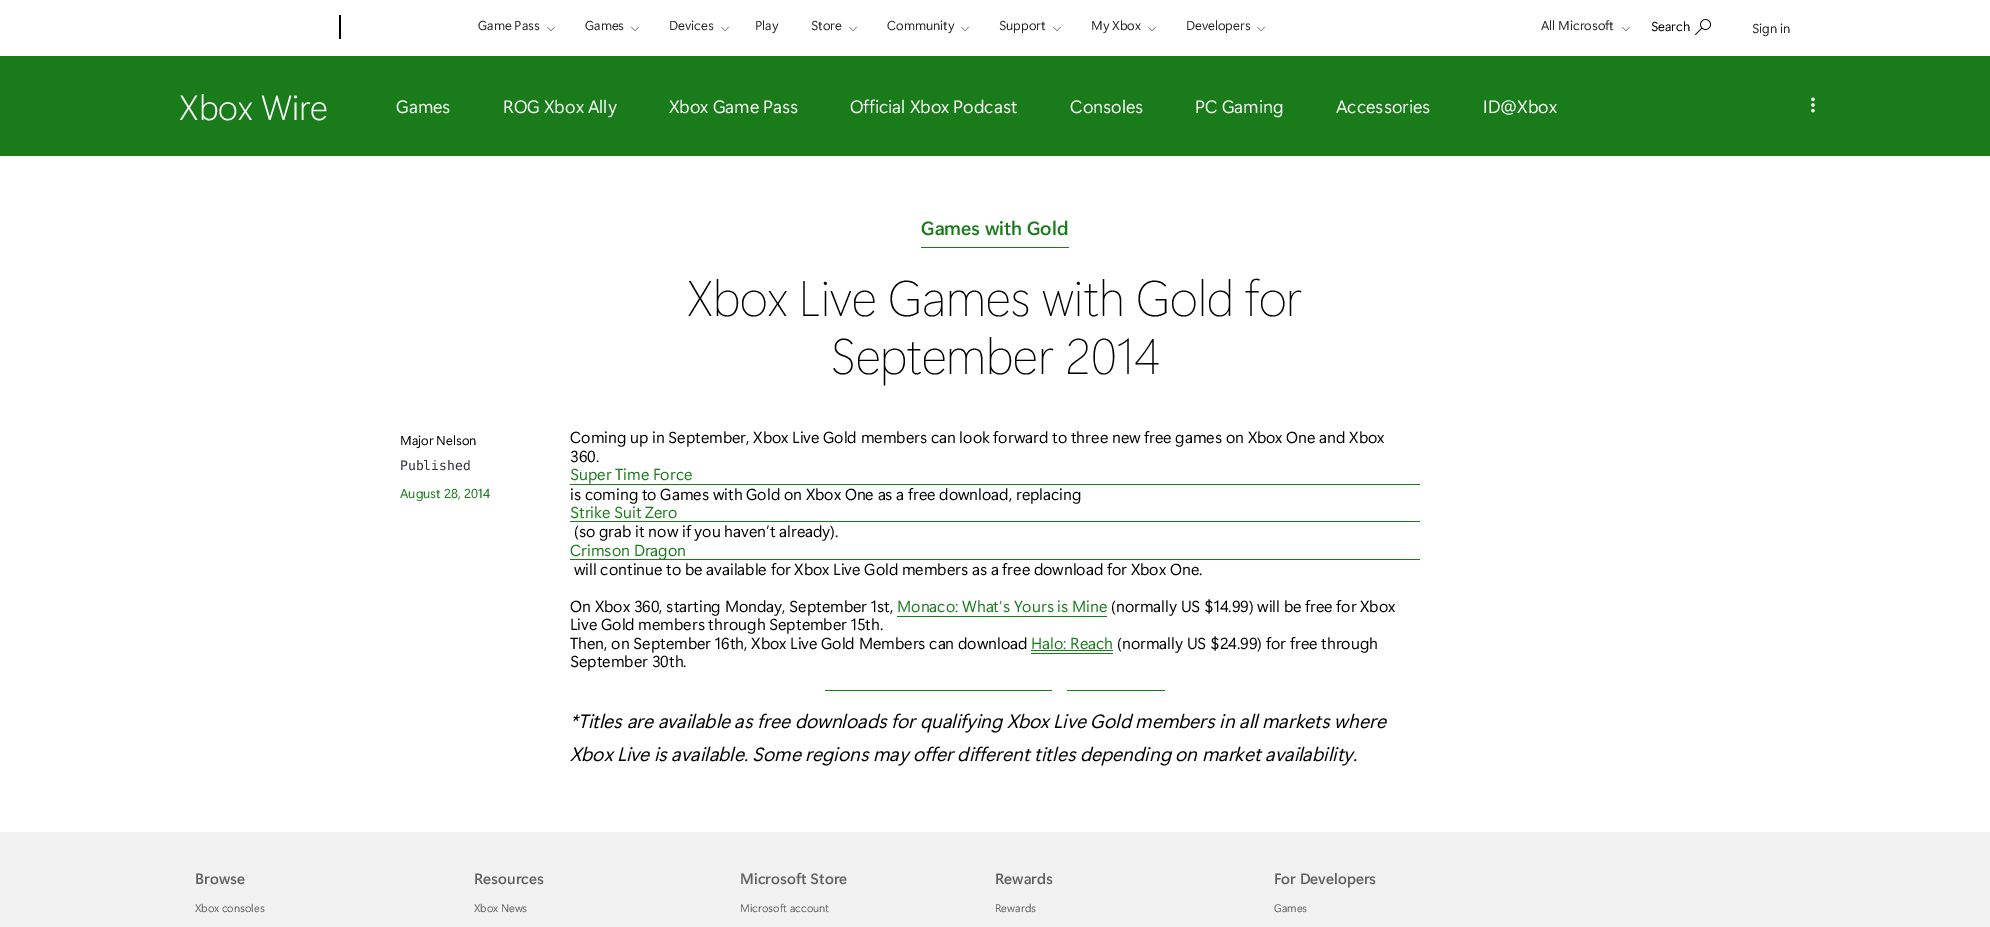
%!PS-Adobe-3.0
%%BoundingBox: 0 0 1990 927
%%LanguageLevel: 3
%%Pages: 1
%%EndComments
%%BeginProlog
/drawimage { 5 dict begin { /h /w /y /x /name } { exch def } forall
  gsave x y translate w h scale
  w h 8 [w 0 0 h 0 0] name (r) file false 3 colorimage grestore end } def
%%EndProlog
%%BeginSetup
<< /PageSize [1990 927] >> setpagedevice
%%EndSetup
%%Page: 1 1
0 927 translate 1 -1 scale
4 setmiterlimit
1 setgray
0 0 1990 927 rectfill
0 setgray
339 15 2 24 rectfill
(images/1.raw) 547 26 8 5 drawimage
(images/1.raw) 631 26 8 5 drawimage
(images/1.raw) 721 26 8 5 drawimage
(images/1.raw) 849 26 8 5 drawimage
(images/1.raw) 961 26 8 5 drawimage
(images/1.raw) 1053 26 8 5 drawimage
(images/1.raw) 1148 26 8 5 drawimage
(images/1.raw) 1257 26 8 5 drawimage
(images/1.raw) 1622 26 8 5 drawimage
(images/2.raw) 1695 19 16 16 drawimage
0.098 0.482 0.102 setrgbcolor
0 56 1990 100 rectfill
(images/3.raw) 1811 97 4 16 drawimage
921 247 148 1 rectfill
570 484 850 1 rectfill
570 521 850 1 rectfill
570 559 850 1 rectfill
897 616 210 1 rectfill
1031 653 82 1 rectfill
1031 650 82 1 rectfill
825 690 227 1 rectfill
1067 690 98 1 rectfill
0.949 setgray
0 832 1990 95 rectfill
/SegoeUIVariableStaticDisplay-Regular [13 0 0 -13 0 0] selectfont
0.149 setgray
478 30 moveto (Game Pass) show
585 30 moveto (Games) show
669 30 moveto (Devices) show
755 30 moveto (Play) show
811 30 moveto (Store) show
887 30 moveto (Community) show
999 30 moveto (Support) show
1091 30 moveto (My Xbox) show
1186 30 moveto (Developers) show
1541 30 moveto (All Microsoft) show
0 setgray
1651 31 moveto (Search) show
0.149 setgray
1752 33 moveto (Sign in) show
/SegoeUIVariableStaticDisplay-Light [35 0 0 -35 0 0] selectfont
1 setgray
179 120 moveto (Xbox Wire) show
/SegoeUIVariableStaticDisplay-Regular [18 0 0 -18 0 0] selectfont
396 113 moveto (Games) show
503 113 moveto (ROG Xbox Ally) show
669 113 moveto (Xbox Game Pass) show
850 113 moveto (Official Xbox Podcast) show
1070 113 moveto (Consoles) show
1195 113 moveto (PC Gaming) show
1336 113 moveto (Accessories) show
1483 113 moveto (ID@Xbox) show
/SegoeUIVariableStaticDisplay-SemiBold [19.2 0 0 -19.2 0 0] selectfont
0.098 0.482 0.102 setrgbcolor
921 235 moveto (Games with Gold) show
/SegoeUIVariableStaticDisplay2-Light [50 0 0 -50 0 0] selectfont
0 setgray
687 316 moveto (Xbox Live Games with Gold for) show
830 374 moveto (September 2014) show
/SegoeUIVariableStaticDisplay-Regular [13 0 0 -13 0 0] selectfont
400 445 moveto (Major Nelson) show
/DejaVuSansMono-Regular [13 0 0 -13 0 0] selectfont
0.173 0.192 0.212 setrgbcolor
400 470 moveto (Published) show
/SegoeUIVariableStaticDisplay-Regular [13 0 0 -13 0 0] selectfont
0.098 0.482 0.102 setrgbcolor
400 498 moveto (August 28, 2014) show
/SegoeUIVariableStaticDisplay-Regular [16 0 0 -16 0 0] selectfont
0 setgray
570 443 moveto (Coming up in September, Xbox Live Gold members can look forward to three new free games on Xbox One and Xbox) show
570 462 moveto (360.) show
0.098 0.482 0.102 setrgbcolor
570 480 moveto (Super Time Force) show
0 setgray
570 500 moveto (is coming to Games with Gold on Xbox One as a free download, replacing) show
0.098 0.482 0.102 setrgbcolor
570 518 moveto (Strike Suit Zero) show
0 setgray
574 537 moveto (\(so grab it now if you haven’t already\).) show
0.098 0.482 0.102 setrgbcolor
570 556 moveto (Crimson Dragon) show
0 setgray
574 575 moveto (will continue to be available for Xbox Live Gold members as a free download for Xbox One.) show
570 612 moveto (On Xbox 360, starting Monday, September 1st,) show
0.098 0.482 0.102 setrgbcolor
897 612 moveto (Monaco: What's Yours is Mine) show
0 setgray
1111 612 moveto (\(normally US $14.99\) will be free for Xbox) show
570 630 moveto (Live Gold members through September 15th.) show
570 649 moveto (Then, on September 16th, Xbox Live Gold Members can download) show
0.098 0.482 0.102 setrgbcolor
1031 649 moveto (Halo: Reach) show
0 setgray
1117 649 moveto (\(normally US $24.99\) for free through) show
570 667 moveto (September 30th.) show
/SegoeUIVariableStaticDisplay-Italic [19.2 0 0 -19.2 0 0] selectfont
570 728 moveto (*Titles are available as free downloads for qualifying Xbox Live Gold members in all markets where) show
570 761 moveto (Xbox Live is available. Some regions may offer different titles depending on market availability.) show
/SegoeUIVariableStaticDisplay-SemiBold [15 0 0 -15 0 0] selectfont
0.38 setgray
195 884 moveto (Browse) show
/SegoeUIVariableStaticDisplay-Regular [11 0 0 -11 0 0] selectfont
195 912 moveto (Xbox consoles) show
/SegoeUIVariableStaticDisplay-SemiBold [15 0 0 -15 0 0] selectfont
474 884 moveto (Resources) show
/SegoeUIVariableStaticDisplay-Regular [11 0 0 -11 0 0] selectfont
474 912 moveto (Xbox News) show
/SegoeUIVariableStaticDisplay-SemiBold [15 0 0 -15 0 0] selectfont
740 884 moveto (Microsoft Store) show
/SegoeUIVariableStaticDisplay-Regular [11 0 0 -11 0 0] selectfont
740 912 moveto (Microsoft account) show
/SegoeUIVariableStaticDisplay-SemiBold [15 0 0 -15 0 0] selectfont
995 884 moveto (Rewards) show
/SegoeUIVariableStaticDisplay-Regular [11 0 0 -11 0 0] selectfont
995 912 moveto (Rewards) show
/SegoeUIVariableStaticDisplay-SemiBold [15 0 0 -15 0 0] selectfont
1274 884 moveto (For Developers) show
/SegoeUIVariableStaticDisplay-Regular [11 0 0 -11 0 0] selectfont
1274 912 moveto (Games) show
showpage
%%EOF
